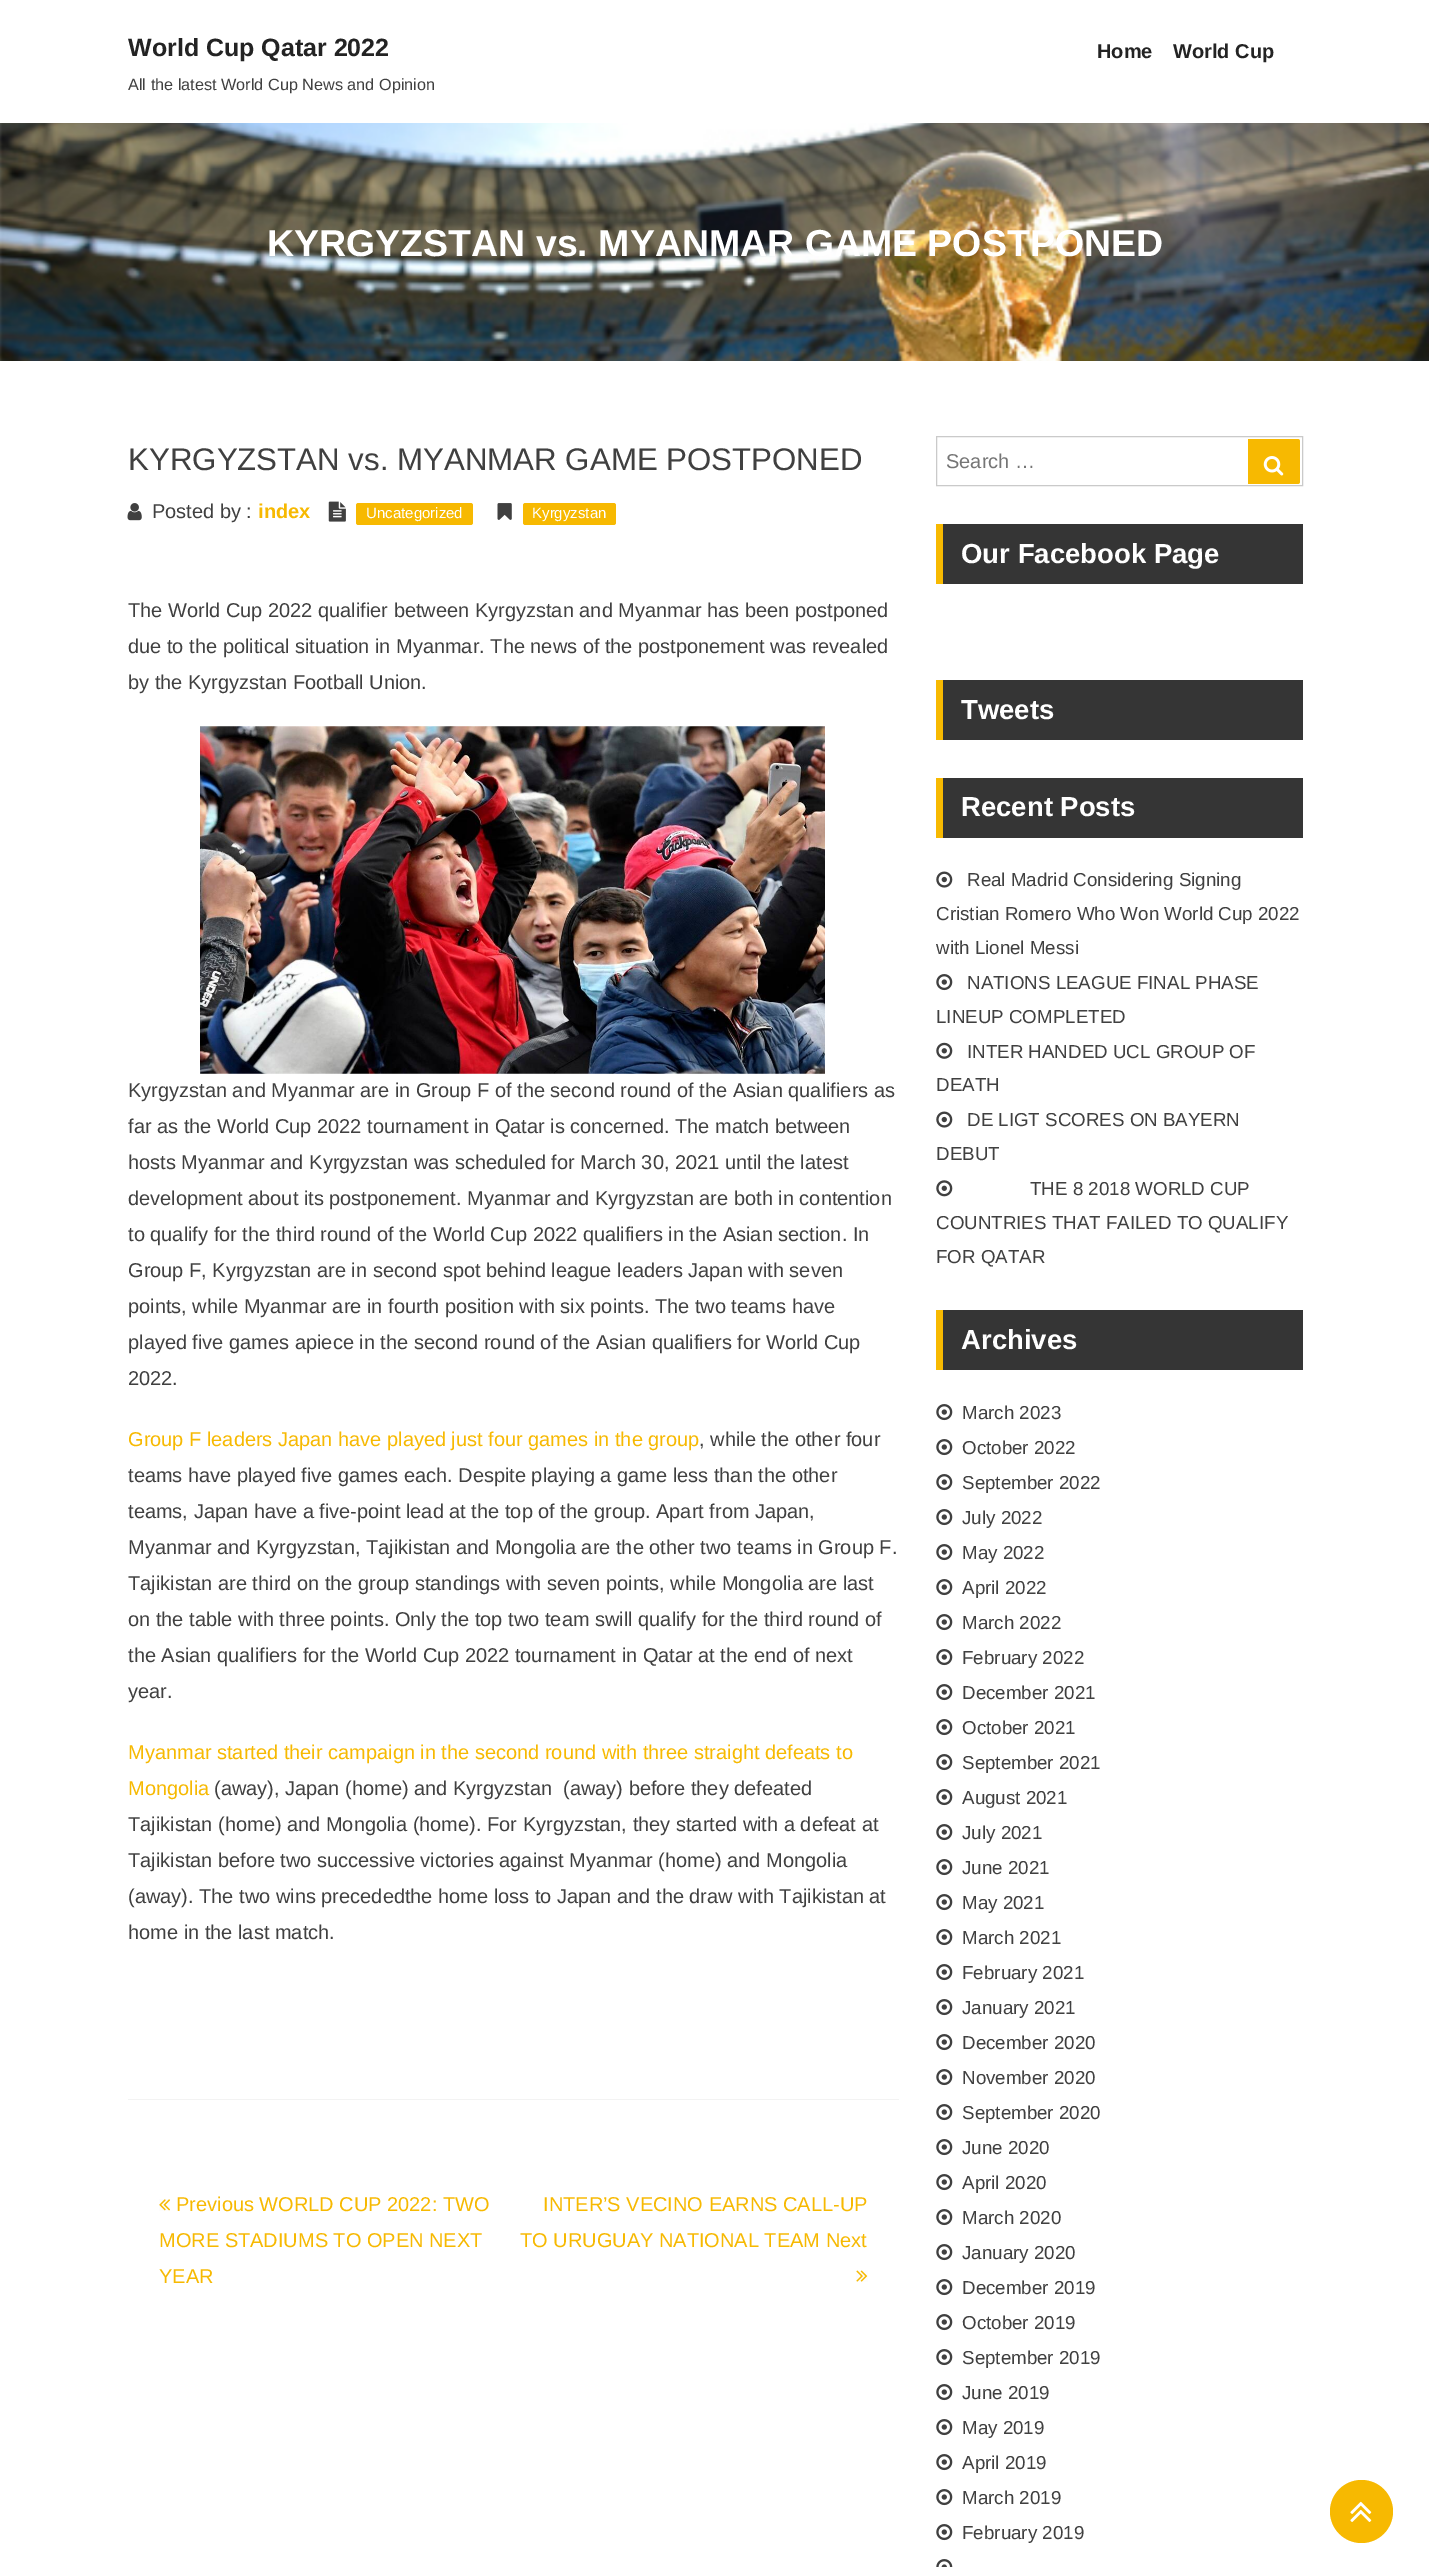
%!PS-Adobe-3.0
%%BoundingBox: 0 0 1429 2567
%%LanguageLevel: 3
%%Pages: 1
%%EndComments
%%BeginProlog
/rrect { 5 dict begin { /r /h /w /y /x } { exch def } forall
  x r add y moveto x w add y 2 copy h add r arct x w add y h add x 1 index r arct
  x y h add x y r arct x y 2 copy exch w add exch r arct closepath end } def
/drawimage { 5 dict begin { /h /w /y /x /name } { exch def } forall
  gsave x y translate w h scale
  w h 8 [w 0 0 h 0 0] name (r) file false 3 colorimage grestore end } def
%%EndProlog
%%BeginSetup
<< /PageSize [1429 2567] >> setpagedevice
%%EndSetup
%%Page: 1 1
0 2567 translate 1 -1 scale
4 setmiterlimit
1 setgray
0 0 1429 2567 rectfill
(images/1.raw) 0 123 1429 238 drawimage
0.953 setgray
128 2099 771 1 rectfill
(images/2.raw) 127 503 15 18 drawimage
(images/3.raw) 328 501 18 21 drawimage
0.969 0.725 0.004 setrgbcolor
356 503 117 22 2.5 rrect fill
(images/4.raw) 497 503 15 17 drawimage
523 503 93 22 2.5 rrect fill
(images/5.raw) 200 726 625 348 drawimage
(images/6.raw) 159 2199 11 12 drawimage
(images/7.raw) 856 2270 12 12 drawimage
0.792 setgray
936.5 436.5 366 49 rectstroke
0.969 0.725 0.004 setrgbcolor
newpath 1248 439 moveto 1297.5 439 lineto 1299 439 1300 440 1300 441.5 curveto 1300 481.5 lineto 1300 483 1299 484 1297.5 484 curveto 1248 484 lineto closepath fill
(images/8.raw) 1263 456 21 20 drawimage
0.208 setgray
943 524 360 60 rectfill
0.969 0.725 0.004 setrgbcolor
936 524 7 60 rectfill
0.208 setgray
943 680 360 60 rectfill
0.969 0.725 0.004 setrgbcolor
936 680 7 60 rectfill
0.208 setgray
943 778 360 60 rectfill
0.969 0.725 0.004 setrgbcolor
936 778 7 60 rectfill
(images/9.raw) 936 871 17 17 drawimage
(images/10.raw) 936 974 17 17 drawimage
(images/11.raw) 936 1042 17 17 drawimage
(images/9.raw) 936 1111 17 17 drawimage
(images/12.raw) 936 1180 17 17 drawimage
0.208 setgray
943 1310 360 60 rectfill
0.969 0.725 0.004 setrgbcolor
936 1310 7 60 rectfill
(images/10.raw) 936 1404 17 17 drawimage
(images/10.raw) 936 1439 17 17 drawimage
(images/10.raw) 936 1474 17 17 drawimage
(images/10.raw) 936 1509 17 17 drawimage
(images/10.raw) 936 1544 17 17 drawimage
(images/10.raw) 936 1579 17 17 drawimage
(images/10.raw) 936 1614 17 17 drawimage
(images/10.raw) 936 1649 17 17 drawimage
(images/10.raw) 936 1684 17 17 drawimage
(images/10.raw) 936 1719 17 17 drawimage
(images/10.raw) 936 1754 17 17 drawimage
(images/10.raw) 936 1789 17 17 drawimage
(images/10.raw) 936 1824 17 17 drawimage
(images/10.raw) 936 1859 17 17 drawimage
(images/10.raw) 936 1894 17 17 drawimage
(images/10.raw) 936 1929 17 17 drawimage
(images/10.raw) 936 1964 17 17 drawimage
(images/10.raw) 936 1999 17 17 drawimage
(images/10.raw) 936 2034 17 17 drawimage
(images/10.raw) 936 2069 17 17 drawimage
(images/10.raw) 936 2104 17 17 drawimage
(images/10.raw) 936 2139 17 17 drawimage
(images/10.raw) 936 2174 17 17 drawimage
(images/10.raw) 936 2209 17 17 drawimage
(images/10.raw) 936 2244 17 17 drawimage
(images/10.raw) 936 2279 17 17 drawimage
(images/10.raw) 936 2314 17 17 drawimage
(images/10.raw) 936 2349 17 17 drawimage
(images/10.raw) 936 2384 17 17 drawimage
(images/10.raw) 936 2419 17 17 drawimage
(images/10.raw) 936 2454 17 17 drawimage
(images/10.raw) 936 2489 17 17 drawimage
(images/10.raw) 936 2524 17 17 drawimage
(images/13.raw) 936 2559 17 8 drawimage
newpath 1361.5 2511.5 31.5 0 360 arc closepath fill
(images/14.raw) 1350 2501 22 21 drawimage
/LiberationSans-Bold [25 0 0 -25 0 0] selectfont
0.137 setgray
128 56 moveto (World Cup Qatar 2022) show
/LiberationSans-Regular [16.25 0 0 -16.25 0 0] selectfont
0.251 setgray
128 90 moveto (All the latest World Cup News and Opinion) show
/LiberationSans-Bold [20 0 0 -20 0 0] selectfont
0.137 setgray
1097 58 moveto (Home) show
1173 58 moveto (World Cup) show
/LiberationSans-Bold [37.5 0 0 -37.5 0 0] selectfont
1 setgray
267 256 moveto (KYRGYZSTAN vs. MYANMAR GAME POSTPONED) show
/LiberationSans-Regular [31.25 0 0 -31.25 0 0] selectfont
0.251 setgray
128 470 moveto (KYRGYZSTAN vs. MYANMAR GAME POSTPONED) show
/LiberationSans-Regular [20 0 0 -20 0 0] selectfont
152 518 moveto (Posted by :) show
/LiberationSans-Bold [20 0 0 -20 0 0] selectfont
0.969 0.725 0.004 setrgbcolor
258 518 moveto (index) show
/LiberationSans-Regular [15 0 0 -15 0 0] selectfont
1 setgray
366 518 moveto (Uncategorized) show
532 518 moveto (Kyrgyzstan) show
/LiberationSans-Regular [20 0 0 -20 0 0] selectfont
0.251 setgray
128 617 moveto (The World Cup 2022 qualifier between Kyrgyzstan and Myanmar has been postponed) show
128 653 moveto (due to the political situation in Myanmar. The news of the postponement was revealed) show
128 689 moveto (by the Kyrgyzstan Football Union.) show
128 1097 moveto (Kyrgyzstan and Myanmar are in Group F of the second round of the Asian qualifiers as) show
128 1133 moveto (far as the World Cup 2022 tournament in Qatar is concerned. The match between) show
128 1169 moveto (hosts Myanmar and Kyrgyzstan was scheduled for March 30, 2021 until the latest) show
128 1205 moveto (development about its postponement. Myanmar and Kyrgyzstan are both in contention) show
128 1241 moveto (to qualify for the third round of the World Cup 2022 qualifiers in the Asian section. In) show
128 1277 moveto (Group F, Kyrgyzstan are in second spot behind league leaders Japan with seven) show
128 1313 moveto (points, while Myanmar are in fourth position with six points. The two teams have) show
128 1349 moveto (played five games apiece in the second round of the Asian qualifiers for World Cup) show
128 1385 moveto (2022.) show
0.969 0.725 0.004 setrgbcolor
128 1446 moveto (Group F leaders Japan have played just four games in the group) show
0.251 setgray
699 1446 moveto (, while the other four) show
128 1482 moveto (teams have played five games each. Despite playing a game less than the other) show
128 1518 moveto (teams, Japan have a five-point lead at the top of the group. Apart from Japan,) show
128 1554 moveto (Myanmar and Kyrgyzstan, Tajikistan and Mongolia are the other two teams in Group F.) show
128 1590 moveto (Tajikistan are third on the group standings with seven points, while Mongolia are last) show
128 1626 moveto (on the table with three points. Only the top two team swill qualify for the third round of) show
128 1662 moveto (the Asian qualifiers for the World Cup 2022 tournament in Qatar at the end of next) show
128 1698 moveto (year.) show
0.969 0.725 0.004 setrgbcolor
128 1759 moveto (Myanmar started their campaign in the second round with three straight defeats to) show
128 1795 moveto (Mongolia) show
0.251 setgray
214 1795 moveto (\(away\), Japan \(home\) and Kyrgyzstan  \(away\) before they defeated) show
128 1831 moveto (Tajikistan \(home\) and Mongolia \(home\). For Kyrgyzstan, they started with a defeat at) show
128 1867 moveto (Tajikistan before two successive victories against Myanmar \(home\) and Mongolia) show
128 1903 moveto (\(away\). The two wins precededthe home loss to Japan and the draw with Tajikistan at) show
128 1939 moveto (home in the last match.) show
0.969 0.725 0.004 setrgbcolor
176 2211 moveto (Previous WORLD CUP 2022: TWO) show
159 2247 moveto (MORE STADIUMS TO OPEN NEXT) show
159 2283 moveto (YEAR) show
543 2211 moveto (INTER’S VECINO EARNS CALL-UP) show
520 2247 moveto (TO URUGUAY NATIONAL TEAM Next) show
0.459 setgray
946 468 moveto (Search …) show
/LiberationSans-Bold [27.5 0 0 -27.5 0 0] selectfont
1 setgray
961 563 moveto (Our Facebook Page) show
961 719 moveto (Tweets) show
961 816 moveto (Recent Posts) show
/LiberationSans-Regular [18.75 0 0 -18.75 0 0] selectfont
0.251 setgray
967 886 moveto (Real Madrid Considering Signing) show
936 920 moveto (Cristian Romero Who Won World Cup 2022) show
936 954 moveto (with Lionel Messi) show
967 989 moveto (NATIONS LEAGUE FINAL PHASE) show
936 1023 moveto (LINEUP COMPLETED) show
967 1058 moveto (INTER HANDED UCL GROUP OF) show
936 1091 moveto (DEATH) show
967 1126 moveto (DE LIGT SCORES ON BAYERN) show
936 1160 moveto (DEBUT) show
1030 1195 moveto (THE 8 2018 WORLD CUP) show
936 1229 moveto (COUNTRIES THAT FAILED TO QUALIFY) show
936 1263 moveto (FOR QATAR) show
/LiberationSans-Bold [27.5 0 0 -27.5 0 0] selectfont
1 setgray
961 1349 moveto (Archives) show
/LiberationSans-Regular [18.75 0 0 -18.75 0 0] selectfont
0.251 setgray
962 1419 moveto (March 2023) show
962 1454 moveto (October 2022) show
962 1489 moveto (September 2022) show
962 1524 moveto (July 2022) show
962 1559 moveto (May 2022) show
962 1594 moveto (April 2022) show
962 1629 moveto (March 2022) show
962 1664 moveto (February 2022) show
962 1699 moveto (December 2021) show
962 1734 moveto (October 2021) show
962 1769 moveto (September 2021) show
962 1804 moveto (August 2021) show
962 1839 moveto (July 2021) show
962 1874 moveto (June 2021) show
962 1909 moveto (May 2021) show
962 1944 moveto (March 2021) show
962 1979 moveto (February 2021) show
962 2014 moveto (January 2021) show
962 2049 moveto (December 2020) show
962 2084 moveto (November 2020) show
962 2119 moveto (September 2020) show
962 2154 moveto (June 2020) show
962 2189 moveto (April 2020) show
962 2224 moveto (March 2020) show
962 2259 moveto (January 2020) show
962 2294 moveto (December 2019) show
962 2329 moveto (October 2019) show
962 2364 moveto (September 2019) show
962 2399 moveto (June 2019) show
962 2434 moveto (May 2019) show
962 2469 moveto (April 2019) show
962 2504 moveto (March 2019) show
962 2539 moveto (February 2019) show
showpage
%%EOF
